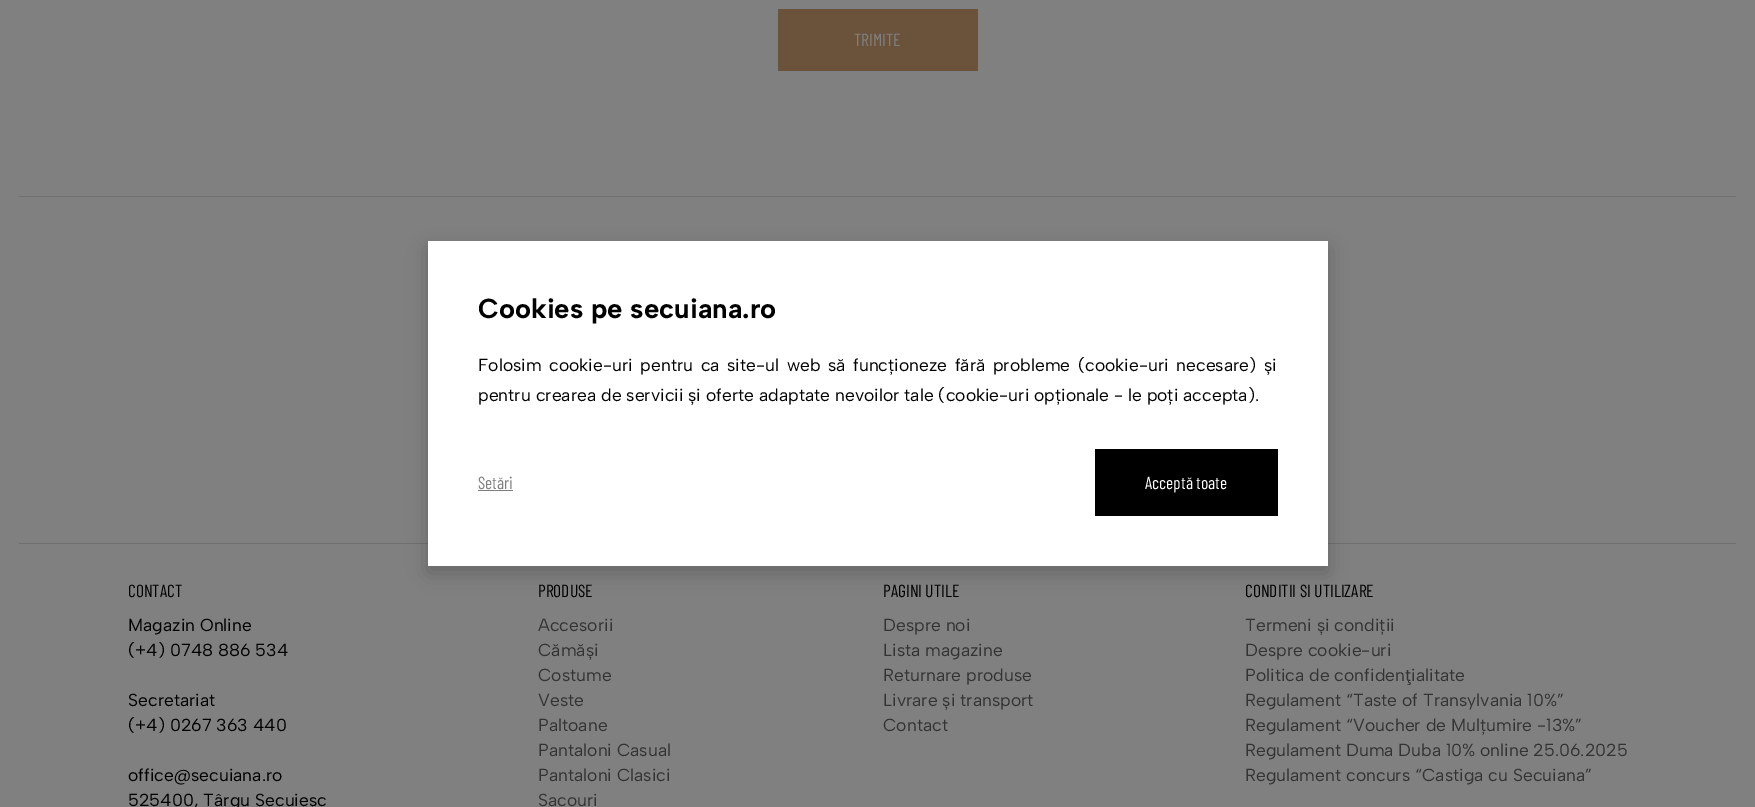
%!PS-Adobe-3.0
%%BoundingBox: 0 0 1755 807
%%LanguageLevel: 3
%%Pages: 1
%%EndComments
%%BeginProlog
/setalpha { dup .setfillconstantalpha .setstrokeconstantalpha } def
/rrect { 5 dict begin { /r /h /w /y /x } { exch def } forall
  x r add y moveto x w add y 2 copy h add r arct x w add y h add x 1 index r arct
  x y h add x y r arct x y 2 copy exch w add exch r arct closepath end } def
/softshadow { 12 dict begin { /a /b /q /h /w /y /x } { exch def } forall gsave /was 0 def
  9 -2 -9 { dup b mul 4 div /e exch def 1 sub .425 mul 2.718 exch exp 1 add a .99 .min exch div /now exch def
    1 1 now sub 1 was sub div sub setalpha /was now def
    w h .min e 2 mul add 0 gt { x e sub y e sub w e 2 mul add h e 2 mul add
      q e add b .6 mul add w h .min 2 div e add .min 0 .max rrect fill } if } for grestore end } def
%%EndProlog
%%BeginSetup
<< /PageSize [1755 807] /PageUsesTransparency true >> setpagedevice
%%EndSetup
%%Page: 1 1
0 .pushpdf14devicefilter
0 807 translate 1 -1 scale
4 setmiterlimit
0.502 setgray
0 0 1755 807 rectfill
0.42 0.322 0.231 setrgbcolor
778 9 200 62 rectfill
0.435 setgray
19 543 1717 1 rectfill
0 setgray
428 248 900 325 0 9.5 0.2 softshadow
1 setgray
428 241 900 325 rectfill
0.498 setgray
478 490 35 1 rectfill
0 setgray
1095 449 183 67 rectfill
0.435 setgray
19 196 1717 1 rectfill
/BarlowCondensed-Regular [17.5 0 0 -17.5 0 0] selectfont
0.502 setgray
854 46 moveto (TRIMITE) show
/AlbertSans-Bold [27.5 0 0 -27.5 0 0] selectfont
0 setgray
478 318 moveto (Cookies pe secuiana.ro) show
/AlbertSans-Regular [17.5 0 0 -17.5 0 0] selectfont
478 371 moveto 2.75 0 32 (Folosim cookie-uri pentru ca site-ul web să funcționeze fără probleme \(cookie-uri necesare\) și) widthshow
478 401 moveto (pentru crearea de servicii și oferte adaptate nevoilor tale \(cookie-uri opționale - le poți accepta\).) show
/BarlowCondensed-Regular [17.5 0 0 -17.5 0 0] selectfont
0.502 setgray
478 489 moveto (Setări) show
1 setgray
1145 489 moveto (Acceptă toate) show
0 setgray
128 597 moveto (CONTACT) show
/AlbertSans-Regular [17.5 0 0 -17.5 0 0] selectfont
128 631 moveto (Magazin Online) show
128 656 moveto (\(+4\) 0748 886 534) show
128 706 moveto (Secretariat) show
128 731 moveto (\(+4\) 0267 363 440) show
128 781 moveto (office@secuiana.ro) show
128 806 moveto (525400, Târgu Secuiesc) show
/BarlowCondensed-Regular [17.5 0 0 -17.5 0 0] selectfont
538 597 moveto (PRODUSE) show
/AlbertSans-Regular [17.5 0 0 -17.5 0 0] selectfont
0.2 setgray
538 631 moveto (Accesorii) show
538 656 moveto (Cămăși) show
538 681 moveto (Costume) show
538 706 moveto (Veste) show
538 731 moveto (Paltoane) show
538 756 moveto (Pantaloni Casual) show
538 781 moveto (Pantaloni Clasici) show
538 806 moveto (Sacouri) show
/BarlowCondensed-Regular [17.5 0 0 -17.5 0 0] selectfont
0 setgray
883 597 moveto (PAGINI UTILE) show
/AlbertSans-Regular [17.5 0 0 -17.5 0 0] selectfont
0.2 setgray
883 631 moveto (Despre noi) show
883 656 moveto (Lista magazine) show
883 681 moveto (Returnare produse) show
883 706 moveto (Livrare și transport) show
883 731 moveto (Contact) show
/BarlowCondensed-Regular [17.5 0 0 -17.5 0 0] selectfont
0 setgray
1245 597 moveto (CONDITII SI UTILIZARE) show
/AlbertSans-Regular [17.5 0 0 -17.5 0 0] selectfont
0.2 setgray
1245 631 moveto (Termeni și condiții) show
1245 656 moveto (Despre cookie-uri) show
1245 681 moveto (Politica de confidenţialitate) show
1245 706 moveto (Regulament “Taste of Transylvania 10%”) show
1245 731 moveto (Regulament “Voucher de Mulțumire -13%”) show
1245 756 moveto (Regulament Duma Duba 10% online 25.06.2025) show
1245 781 moveto (Regulament concurs “Castiga cu Secuiana”) show
.poppdf14devicefilter showpage
%%EOF
